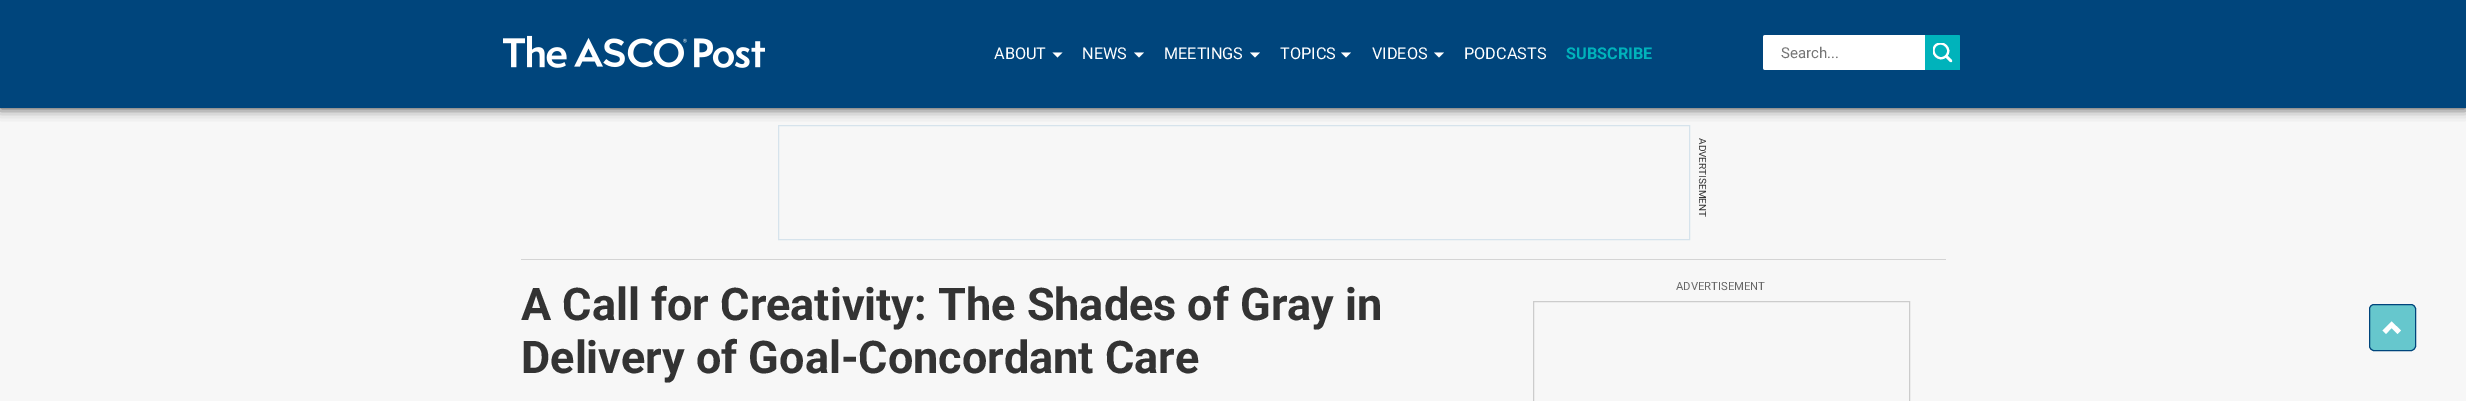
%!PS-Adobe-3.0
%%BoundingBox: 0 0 2466 401
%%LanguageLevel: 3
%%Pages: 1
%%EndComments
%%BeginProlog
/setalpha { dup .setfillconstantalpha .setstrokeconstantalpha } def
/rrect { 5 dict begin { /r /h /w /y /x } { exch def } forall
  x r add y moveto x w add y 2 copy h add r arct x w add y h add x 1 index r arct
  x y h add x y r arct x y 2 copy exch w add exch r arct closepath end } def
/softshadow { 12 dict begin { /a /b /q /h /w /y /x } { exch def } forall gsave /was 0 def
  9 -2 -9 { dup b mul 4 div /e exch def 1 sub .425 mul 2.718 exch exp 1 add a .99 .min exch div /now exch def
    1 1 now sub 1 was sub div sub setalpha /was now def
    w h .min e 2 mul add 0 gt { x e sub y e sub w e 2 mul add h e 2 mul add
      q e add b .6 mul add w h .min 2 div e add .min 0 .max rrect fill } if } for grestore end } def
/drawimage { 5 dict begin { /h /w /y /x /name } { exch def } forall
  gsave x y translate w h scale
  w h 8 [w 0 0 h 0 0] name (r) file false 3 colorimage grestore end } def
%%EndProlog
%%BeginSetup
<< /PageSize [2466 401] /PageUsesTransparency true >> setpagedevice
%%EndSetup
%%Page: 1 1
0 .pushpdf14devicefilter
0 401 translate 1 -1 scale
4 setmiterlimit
0.969 setgray
0 0 2466 401 rectfill
0.839 0.89 0.925 setrgbcolor
778.5 125.5 911 114 rectstroke
0 setgray
0 0 2466 108 0 6 0.8 softshadow
0 0.271 0.486 setrgbcolor
0 0 2466 108 rectfill
(images/1.raw) 503 35 262 33 drawimage
1 setgray
newpath 1052.5 52.5 moveto 1062.5 52.5 lineto 1057.5 57.5 lineto closepath fill
newpath 1134 52.5 moveto 1144 52.5 lineto 1139 57.5 lineto closepath fill
newpath 1250 52.5 moveto 1260 52.5 lineto 1255 57.5 lineto closepath fill
newpath 1341 52.5 moveto 1351 52.5 lineto 1346 57.5 lineto closepath fill
newpath 1434 52.5 moveto 1444 52.5 lineto 1439 57.5 lineto closepath fill
newpath 1765.5 35 moveto 1925 35 lineto 1925 70 lineto 1765.5 70 lineto 1764 70 1763 69 1763 67.5 curveto 1763 37.5 lineto 1763 36 1764 35 1765.5 35 curveto closepath fill
0 0.702 0.733 setrgbcolor
newpath 1925 35 moveto 1957.5 35 lineto 1959 35 1960 36 1960 37.5 curveto 1960 67.5 lineto 1960 69 1959 70 1957.5 70 curveto 1925 70 lineto closepath fill
gsave
1933 43 20 20 rectclip
1 setgray
2.1 setlinewidth
newpath 1935.5 45.5 moveto 1942.5 39 1953 49.5 1946 56 curveto 1939.5 63 1929 52.5 1935.5 45.5 curveto closepath stroke
grestore
1 setgray
2.8 setlinewidth
1 setlinecap
newpath 1946.5 56.5 moveto 1951 61 lineto stroke
0 0.702 0.733 setrgbcolor
7.5 setlinewidth
0 setlinecap
newpath 1929 39 moveto 1956 39 lineto 1956 66 lineto 1929 66 lineto closepath stroke
0.831 setgray
521 259 1425 1 rectfill
0.8 setgray
1 setlinewidth
1533.5 301.5 376 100 rectstroke
0.4 0.78 0.804 setrgbcolor
2369.5 304.5 46 46 4.5 rrect gsave fill grestore
0 0.271 0.486 setrgbcolor
stroke
1 setgray
newpath 2401 330.5 moveto 2397.5 334 lineto 2391.5 328 lineto 2386 334 lineto 2382.5 330.5 lineto 2391.5 321.5 lineto closepath fill
/Roboto-Regular [16.25 0 0 -16.25 0 0] selectfont
994 59 moveto (ABOUT) show
1082 59 moveto (NEWS) show
1164 59 moveto (MEETINGS) show
1280 59 moveto (TOPICS) show
1372 59 moveto (VIDEOS) show
1464 59 moveto (PODCASTS) show
/Roboto-Bold [16.25 0 0 -16.25 0 0] selectfont
0 0.702 0.733 setrgbcolor
1566 59 moveto (SUBSCRIBE) show
/Roboto-Regular [15 0 0 -15 0 0] selectfont
0.459 setgray
1781 58 moveto (Search...) show
/Roboto-Regular [10 0 0 -10 0 0] selectfont
0.2 setgray
gsave 1699 138 translate 90 rotate 0 0 moveto (ADVERTISEMENT) show grestore
/Roboto-Bold [45 0 0 -45 0 0] selectfont
521 320 moveto (A Call for Creativity: The Shades of Gray in) show
521 373 moveto (Delivery of Goal-Concordant Care) show
/Roboto-Regular [11.25 0 0 -11.25 0 0] selectfont
0.4 setgray
1676 290 moveto (ADVERTISEMENT) show
.poppdf14devicefilter showpage
%%EOF
